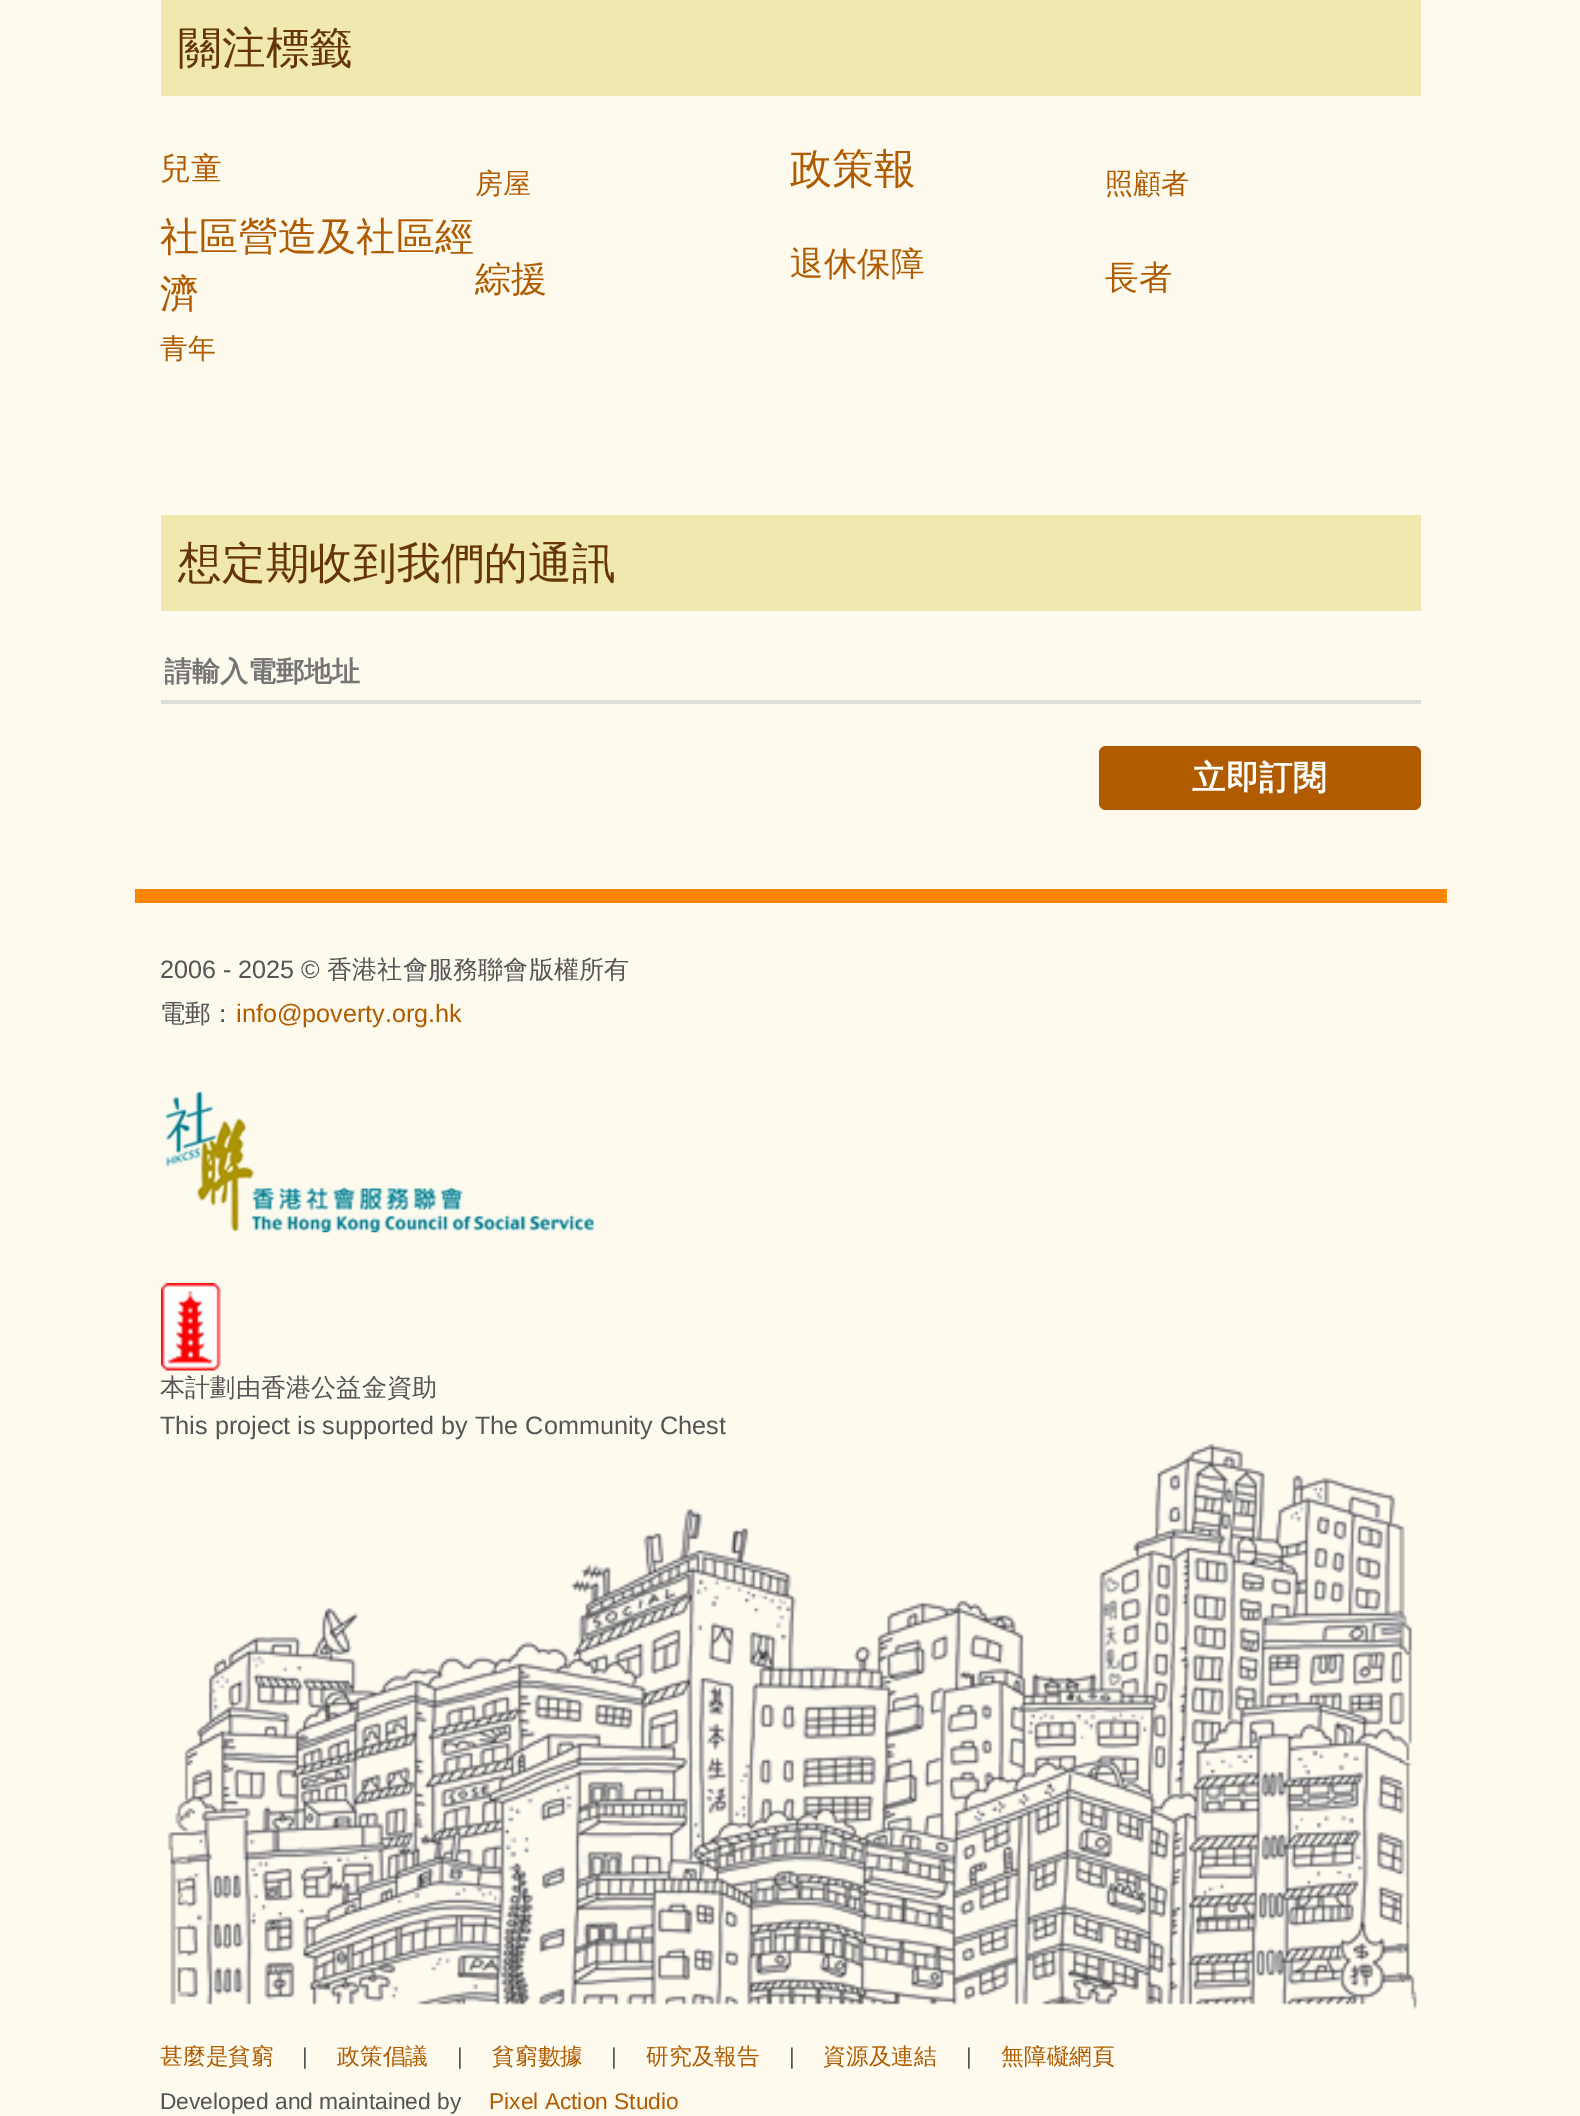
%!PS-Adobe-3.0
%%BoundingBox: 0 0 1580 2116
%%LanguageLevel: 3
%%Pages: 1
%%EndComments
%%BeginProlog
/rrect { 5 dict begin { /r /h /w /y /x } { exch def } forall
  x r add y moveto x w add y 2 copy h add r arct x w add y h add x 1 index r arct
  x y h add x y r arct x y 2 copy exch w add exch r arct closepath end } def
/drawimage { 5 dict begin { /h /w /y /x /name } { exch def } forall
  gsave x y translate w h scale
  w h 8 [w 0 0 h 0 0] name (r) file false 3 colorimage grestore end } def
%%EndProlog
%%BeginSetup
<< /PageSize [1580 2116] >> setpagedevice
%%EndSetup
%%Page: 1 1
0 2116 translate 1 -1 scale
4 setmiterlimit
0.996 0.98 0.933 setrgbcolor
0 0 1580 2116 rectfill
0.945 0.91 0.686 setrgbcolor
161 0 1260 96 rectfill
161 515 1260 96 rectfill
0.867 setgray
161 700 1260 4 rectfill
0.694 0.357 0 setrgbcolor
1099 746 322 64 7 rrect fill
0.996 0.522 0.008 setrgbcolor
135 889 1312 14 rectfill
(images/1.raw) 161 1090 434 143 drawimage
(images/2.raw) 161 1283 60 88 drawimage
(images/3.raw) 167 1443 1250 566 drawimage
/WenQuanYiZenHei-Medium [43.75 0 0 -43.75 0 0] selectfont
0.396 0.208 0.02 setrgbcolor
178 63 moveto (關注標籤) show
/WenQuanYiZenHei-Medium [31 0 0 -31 0 0] selectfont
0.694 0.357 0 setrgbcolor
160 179 moveto (兒童) show
/WenQuanYiZenHei-Medium [28 0 0 -28 0 0] selectfont
475 193 moveto (房屋) show
/WenQuanYiZenHei-Medium [42 0 0 -42 0 0] selectfont
790 183 moveto (政策報) show
/WenQuanYiZenHei-Medium [28 0 0 -28 0 0] selectfont
1105 193 moveto (照顧者) show
/WenQuanYiZenHei-Medium [39.25 0 0 -39.25 0 0] selectfont
160 250 moveto (社區營造及社區經) show
160 307 moveto (濟) show
/WenQuanYiZenHei-Medium [36 0 0 -36 0 0] selectfont
475 291 moveto (綜援) show
/WenQuanYiZenHei-Medium [33.5 0 0 -33.5 0 0] selectfont
790 275 moveto (退休保障) show
1105 289 moveto (長者) show
/WenQuanYiZenHei-Medium [28 0 0 -28 0 0] selectfont
160 358 moveto (青年) show
/WenQuanYiZenHei-Medium [43.75 0 0 -43.75 0 0] selectfont
0.396 0.208 0.02 setrgbcolor
178 578 moveto (想定期收到我們的通訊) show
gsave
165 655 1253 36 rectclip
/WenQuanYiZenHei-Bold [28 0 0 -28 0 0] selectfont
0.459 setgray
164 681 moveto (請輸入電郵地址) show
grestore
/WenQuanYiZenHei-Bold [33.5 0 0 -33.5 0 0] selectfont
1 setgray
1192 789 moveto (立即訂閱) show
/LiberationSans-Regular [25.2 0 0 -25.2 0 0] selectfont
0.333 setgray
160 978 moveto (2006 - 2025 ©) show
/WenQuanYiZenHei-Medium [25.2 0 0 -25.2 0 0] selectfont
327 978 moveto (香港社會服務聯會版權所有) show
160 1022 moveto (電郵：) show
/LiberationSans-Regular [25.2 0 0 -25.2 0 0] selectfont
0.694 0.357 0 setrgbcolor
236 1022 moveto (info@poverty.org.hk) show
/WenQuanYiZenHei-Medium [25.2 0 0 -25.2 0 0] selectfont
0.333 setgray
160 1396 moveto (本計劃由香港公益金資助) show
/LiberationSans-Regular [25.2 0 0 -25.2 0 0] selectfont
160 1434 moveto (This project is supported by The Community Chest) show
/WenQuanYiZenHei-Medium [22.75 0 0 -22.75 0 0] selectfont
0.694 0.357 0 setrgbcolor
160 2064 moveto (甚麼是貧窮) show
/LiberationSans-Regular [22.75 0 0 -22.75 0 0] selectfont
0.333 setgray
302 2064 moveto (|) show
/WenQuanYiZenHei-Medium [22.75 0 0 -22.75 0 0] selectfont
0.694 0.357 0 setrgbcolor
337 2064 moveto (政策倡議) show
/LiberationSans-Regular [22.75 0 0 -22.75 0 0] selectfont
0.333 setgray
457 2064 moveto (|) show
/WenQuanYiZenHei-Medium [22.75 0 0 -22.75 0 0] selectfont
0.694 0.357 0 setrgbcolor
492 2064 moveto (貧窮數據) show
/LiberationSans-Regular [22.75 0 0 -22.75 0 0] selectfont
0.333 setgray
611 2064 moveto (|) show
/WenQuanYiZenHei-Medium [22.75 0 0 -22.75 0 0] selectfont
0.694 0.357 0 setrgbcolor
646 2064 moveto (研究及報告) show
/LiberationSans-Regular [22.75 0 0 -22.75 0 0] selectfont
0.333 setgray
789 2064 moveto (|) show
/WenQuanYiZenHei-Medium [22.75 0 0 -22.75 0 0] selectfont
0.694 0.357 0 setrgbcolor
823 2064 moveto (資源及連結) show
/LiberationSans-Regular [22.75 0 0 -22.75 0 0] selectfont
0.333 setgray
966 2064 moveto (|) show
/WenQuanYiZenHei-Medium [22.75 0 0 -22.75 0 0] selectfont
0.694 0.357 0 setrgbcolor
1001 2064 moveto (無障礙網頁) show
/LiberationSans-Regular [22.75 0 0 -22.75 0 0] selectfont
0.333 setgray
160 2109 moveto (Developed and maintained by) show
0.694 0.357 0 setrgbcolor
489 2109 moveto (Pixel Action Studio) show
showpage
%%EOF
